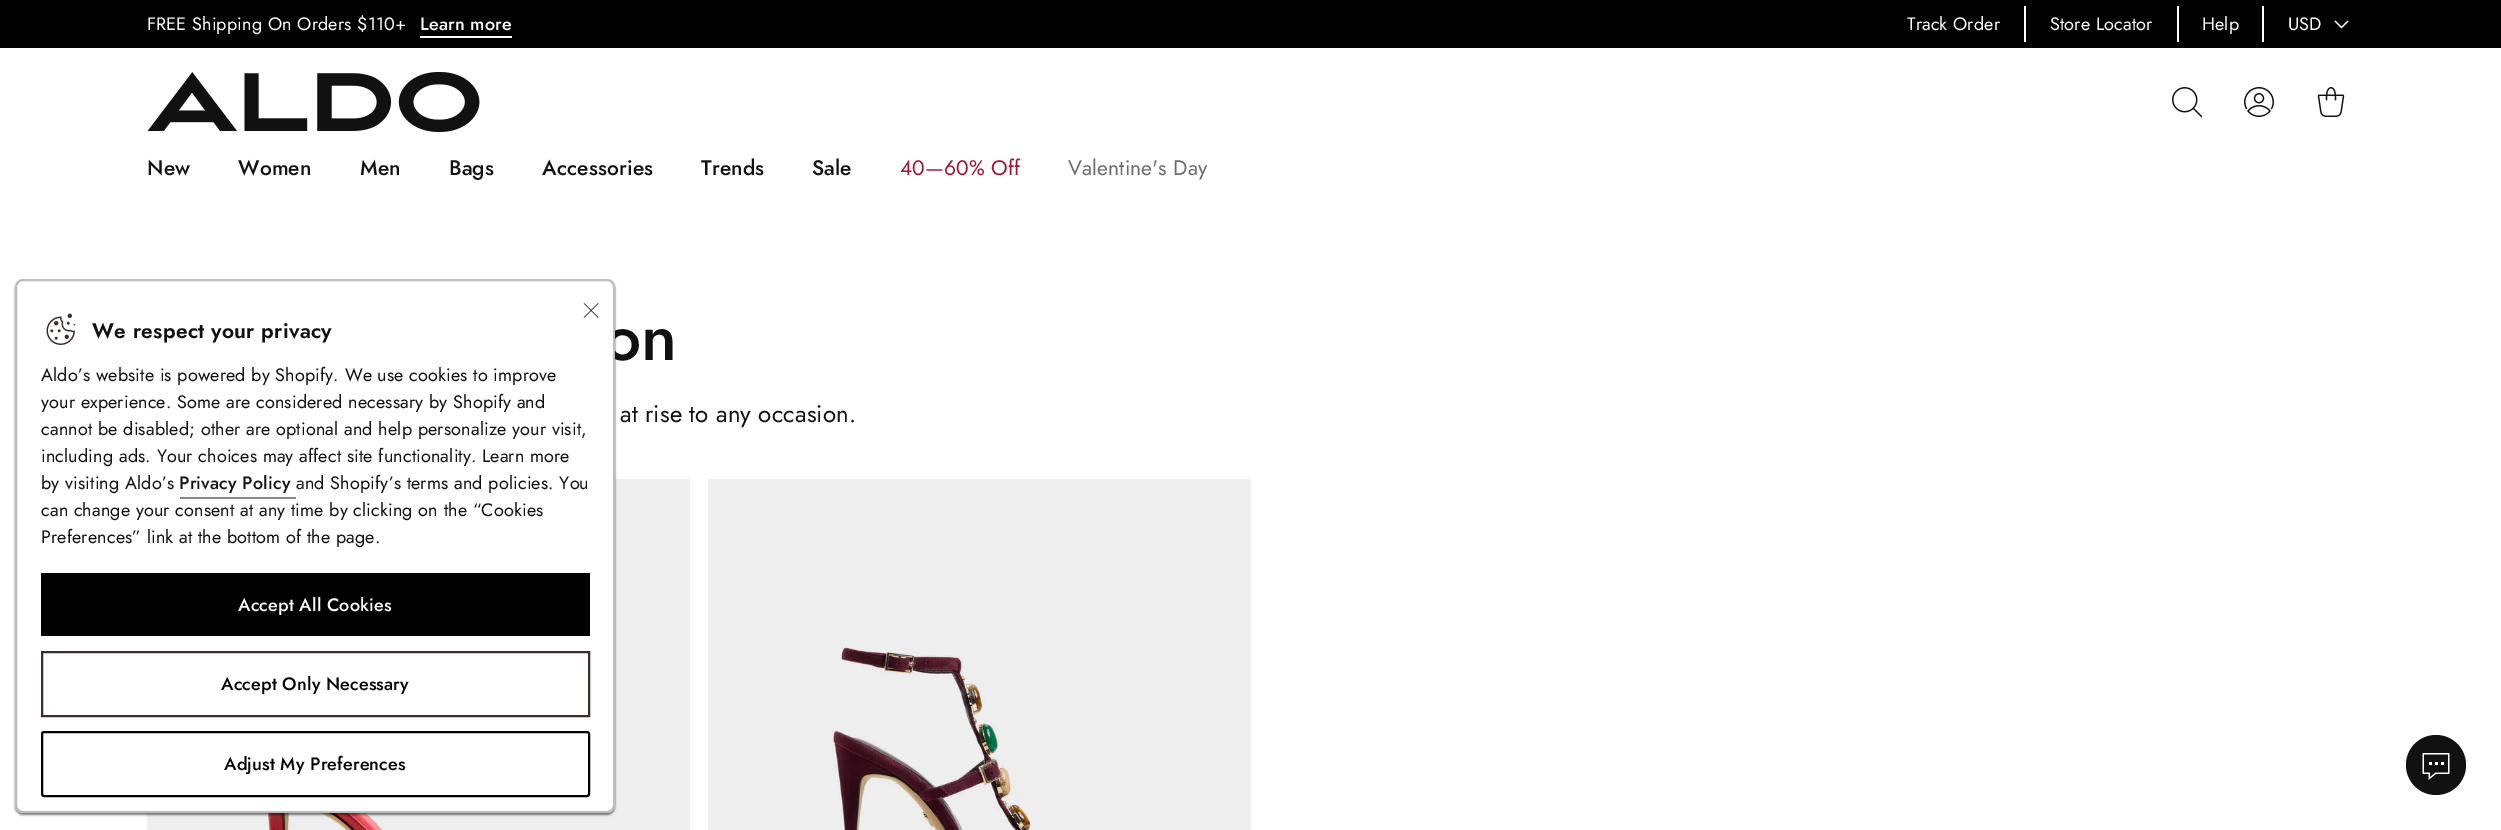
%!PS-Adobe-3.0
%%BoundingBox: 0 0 2501 830
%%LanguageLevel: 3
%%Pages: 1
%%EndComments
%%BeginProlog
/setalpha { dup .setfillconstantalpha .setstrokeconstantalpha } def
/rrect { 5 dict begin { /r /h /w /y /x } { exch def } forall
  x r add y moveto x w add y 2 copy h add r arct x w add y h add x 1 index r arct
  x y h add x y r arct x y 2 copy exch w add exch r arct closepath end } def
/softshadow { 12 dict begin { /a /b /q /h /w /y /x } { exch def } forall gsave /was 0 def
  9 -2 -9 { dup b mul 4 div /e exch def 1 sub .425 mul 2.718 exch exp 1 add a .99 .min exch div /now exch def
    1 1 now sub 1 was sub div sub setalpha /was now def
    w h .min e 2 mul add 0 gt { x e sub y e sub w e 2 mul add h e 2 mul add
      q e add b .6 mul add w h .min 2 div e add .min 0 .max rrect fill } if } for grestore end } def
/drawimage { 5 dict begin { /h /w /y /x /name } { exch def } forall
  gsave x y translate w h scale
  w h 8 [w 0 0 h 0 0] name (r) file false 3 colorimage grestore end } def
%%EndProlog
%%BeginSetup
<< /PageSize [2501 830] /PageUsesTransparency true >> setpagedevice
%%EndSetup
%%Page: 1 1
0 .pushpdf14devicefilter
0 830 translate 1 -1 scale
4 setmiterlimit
1 setgray
0 0 2501 830 rectfill
0 setgray
0 0 2501 48 rectfill
1 setgray
420 36 92 2 rectfill
2024 6 2 36 rectfill
2177 6 2 36 rectfill
2262 6 2 36 rectfill
(images/1.raw) 2334 20 15 9 drawimage
(images/2.raw) 147 72 333 60 drawimage
(images/3.raw) 2172 87 31 31 drawimage
(images/4.raw) 2244 87 30 30 drawimage
(images/5.raw) 2317 87 28 30 drawimage
(images/8.raw) 147 479 543 351 drawimage
0 setgray
15 281 600 534 8 1 0.5 softshadow
(images/9.raw) 708 479 543 351 drawimage
0.067 setgray
newpath 2436 765 30 0 360 arc closepath fill
(images/10.raw) 2422 753 28 27 drawimage
/Jost-Regular [18 0 0 -18 0 0] selectfont
1 setgray
147 30 moveto 0.15 0 (FREE Shipping On Orders $110+) ashow
/Jost-Medium [18 0 0 -18 0 0] selectfont
420 30 moveto 0.15 0 (Learn more) ashow
/Jost-Regular [18 0 0 -18 0 0] selectfont
1907 30 moveto 0.15 0 (Track Order) ashow
2050 30 moveto 0.15 0 (Store Locator) ashow
2202 30 moveto 0.15 0 (Help) ashow
2288 30 moveto 0.15 0 (USD) ashow
/Jost-Medium [21 0 0 -21 0 0] selectfont
0.067 setgray
147 175 moveto 0.15 0 (New) ashow
238 175 moveto 0.15 0 (Women) ashow
360 175 moveto 0.15 0 (Men) ashow
449 175 moveto 0.15 0 (Bags) ashow
542 175 moveto 0.15 0 (Accessories) ashow
701 175 moveto 0.15 0 (Trends) ashow
812 175 moveto 0.15 0 (Sale) ashow
/Jost-Regular [21 0 0 -21 0 0] selectfont
0.624 0.09 0.216 setrgbcolor
900 175 moveto 0.15 0 (40—60% Off) ashow
0.42 setgray
1068 175 moveto 0.15 0 (Valentine's Day) ashow
/Jost-Medium [66 0 0 -66 0 0] selectfont
0.067 setgray
604 360 moveto (on) show
1 setgray
15 279 600 534 8 rrect fill
0.26 setalpha
0 setgray
2 setlinewidth
16 280 598 532 7 rrect stroke
1 setalpha
(images/6.raw) 583 303 16 15 drawimage
(images/7.raw) 46 313 29 32 drawimage
42 732 547 64 2 rrect stroke
/Jost-Medium [18 0 0 -18 0 0] selectfont
224 770 moveto 0.15 0 (Adjust My Preferences) ashow
0.227 0.18 0.173 setrgbcolor
42 652 547 64 rectstroke
0 setgray
221 690 moveto 0.15 0 (Accept Only Necessary) ashow
41 573 549 63 rectfill
1 setgray
238 611 moveto 0.15 0 (Accept All Cookies) ashow
/Jost-Regular [18 0 0 -18 0 0] selectfont
0.067 setgray
41 543 moveto 0.15 0 (Preferences” link at the bottom of the page.) ashow
41 516 moveto 0.15 0 (can change your consent at any time by clicking on the “Cookies) ashow
296 489 moveto 0.15 0 (and Shopify’s terms and policies. You) ashow
/Jost-Medium [18 0 0 -18 0 0] selectfont
179 489 moveto 0.15 0 (Privacy Policy) ashow
0.533 setgray
180 497 116 2 rectfill
/Jost-Regular [18 0 0 -18 0 0] selectfont
0.067 setgray
41 489 moveto 0.15 0 (by visiting Aldo’s) ashow
41 462 moveto 0.15 0 (including ads. Your choices may affect site functionality. Learn more) ashow
41 435 moveto 0.15 0 (cannot be disabled; other are optional and help personalize your visit,) ashow
41 408 moveto 0.15 0 (your experience. Some are considered necessary by Shopify and) ashow
41 381 moveto 0.15 0 (Aldo’s website is powered by Shopify. We use cookies to improve) ashow
/Jost-SemiBold [21 0 0 -21 0 0] selectfont
92 338 moveto 0.3 0 (We respect your privacy) ashow
/Jost-Regular [24 0 0 -24 0 0] selectfont
620 422 moveto 0.15 0 (at rise to any occasion.) ashow
.poppdf14devicefilter showpage
%%EOF
